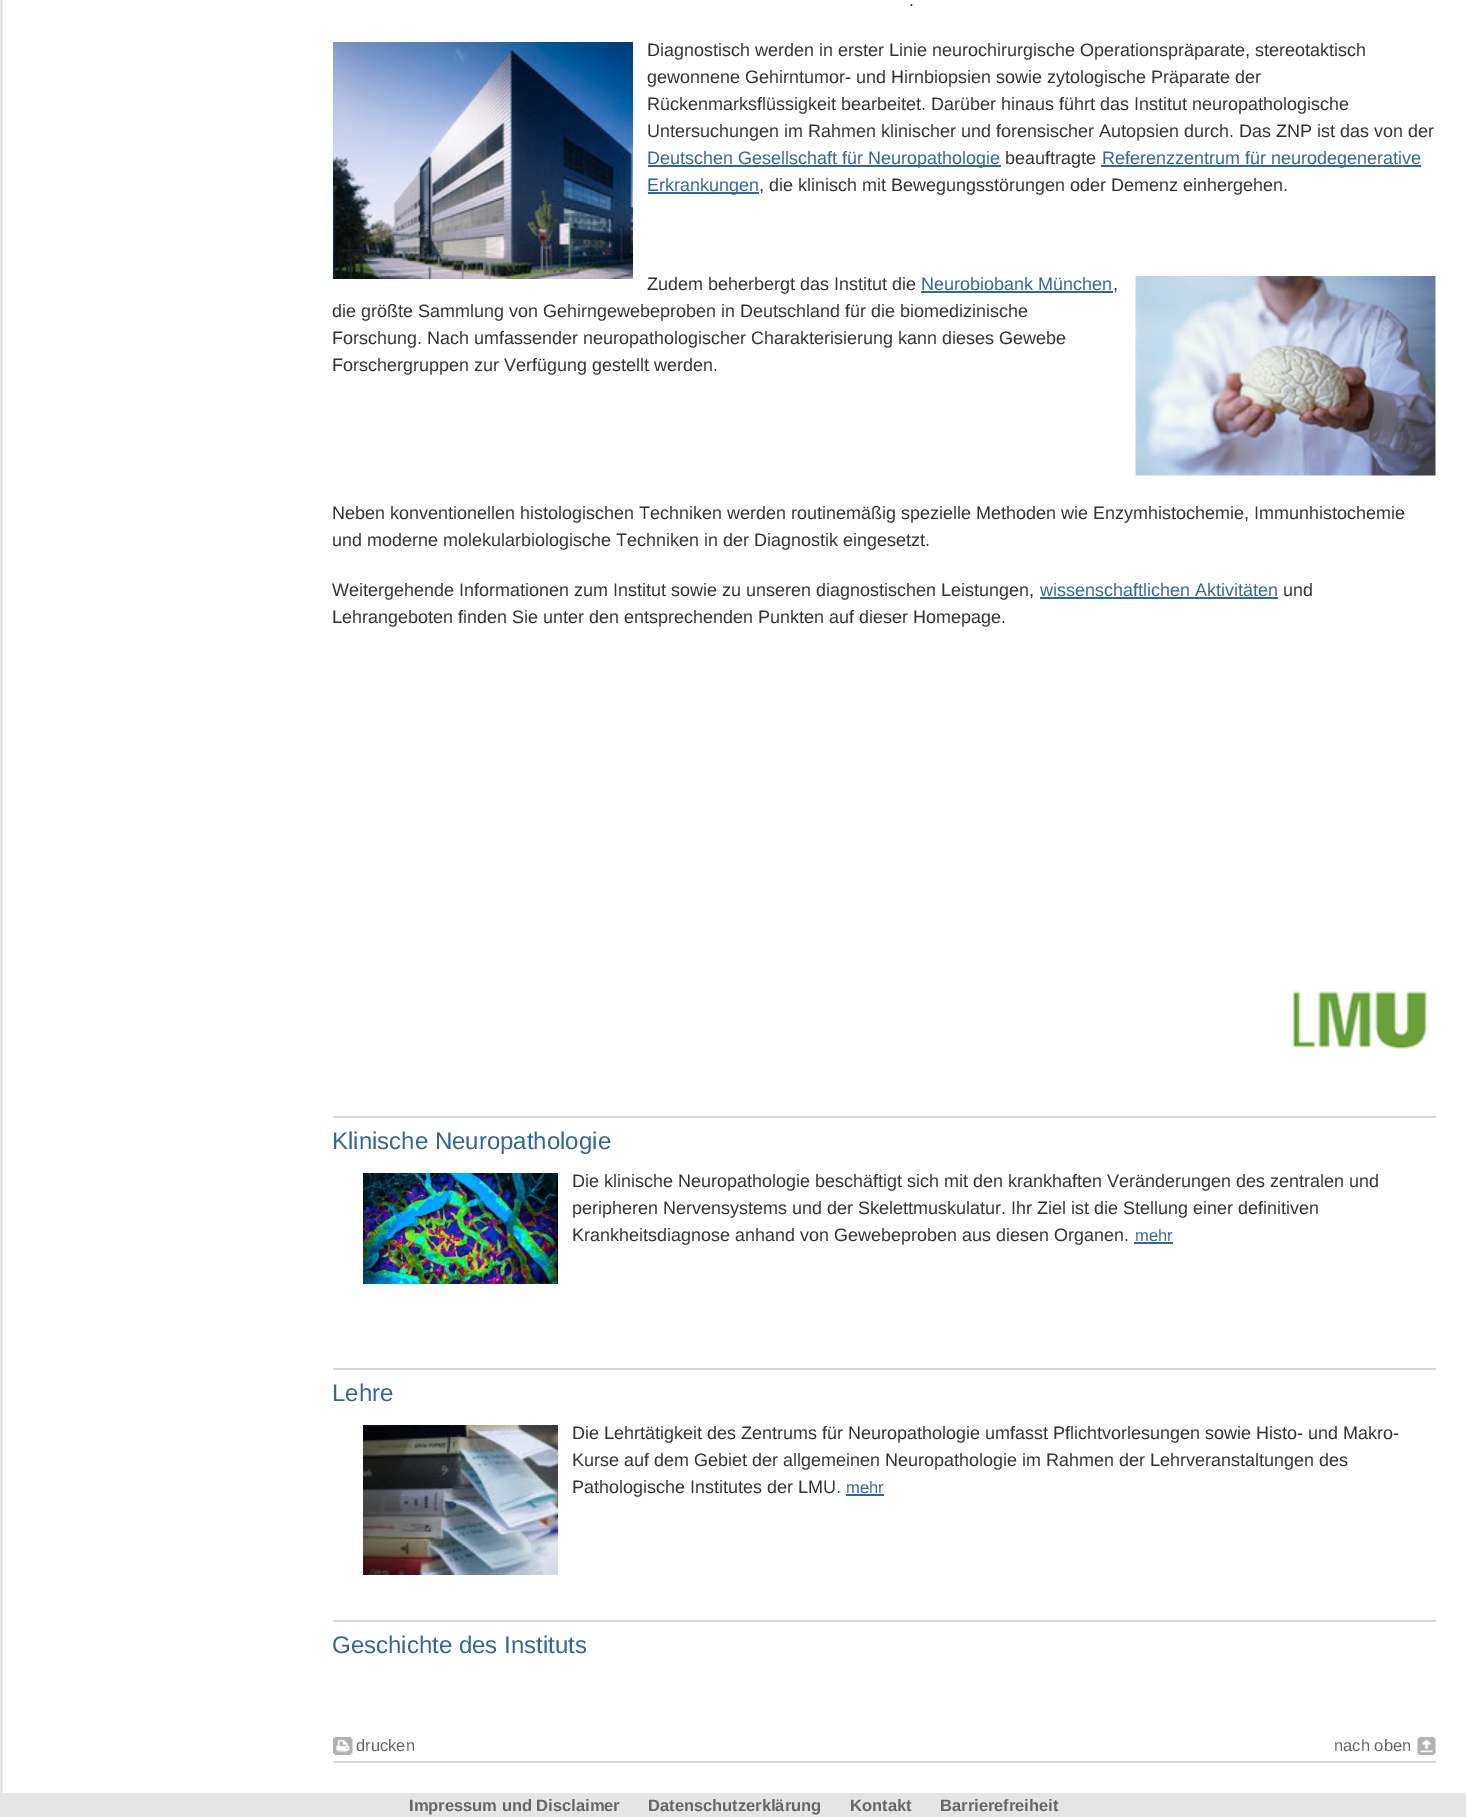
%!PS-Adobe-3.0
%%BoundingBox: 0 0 1466 1817
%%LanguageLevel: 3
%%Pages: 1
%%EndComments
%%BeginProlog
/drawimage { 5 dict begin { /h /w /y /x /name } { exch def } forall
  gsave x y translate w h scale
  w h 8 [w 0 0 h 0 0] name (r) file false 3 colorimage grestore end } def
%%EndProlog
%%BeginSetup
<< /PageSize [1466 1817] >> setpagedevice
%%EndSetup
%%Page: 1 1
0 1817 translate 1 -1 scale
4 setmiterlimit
0.898 setgray
0 0 1466 1817 rectfill
1 setgray
3 0 1463 1793 rectfill
(images/1.raw) 333 42 300 237 drawimage
0.2 0.4 0.6 setrgbcolor
648 165 353 2 rectfill
1101 165 320 2 rectfill
648 192 111 2 rectfill
921 291 192 2 rectfill
(images/2.raw) 1135 276 301 200 drawimage
1040 597 238 2 rectfill
(images/3.raw) 1292 991 135 58 drawimage
0.847 setgray
333 1116 1103 2 rectfill
(images/4.raw) 363 1173 195 111 drawimage
0.2 0.4 0.6 setrgbcolor
1134 1242 39 2 rectfill
0.847 setgray
333 1368 1103 2 rectfill
(images/5.raw) 363 1425 195 150 drawimage
0.2 0.4 0.6 setrgbcolor
846 1494 38 2 rectfill
0.847 setgray
333 1620 1103 2 rectfill
333 1761 1103 2 rectfill
(images/6.raw) 333 1737 20 18 drawimage
(images/7.raw) 1417 1736 19 19 drawimage
/LiberationSans-Regular [18 0 0 -18 0 0] selectfont
0.2 setgray
909 6 moveto (.) show
647 56 moveto (Diagnostisch werden in erster Linie neurochirurgische Operationspräparate, stereotaktisch) show
647 83 moveto (gewonnene Gehirntumor- und Hirnbiopsien sowie zytologische Präparate der) show
647 110 moveto (Rückenmarksflüssigkeit bearbeitet. Darüber hinaus führt das Institut neuropathologische) show
647 137 moveto (Untersuchungen im Rahmen klinischer und forensischer Autopsien durch. Das ZNP ist das von der) show
0.2 0.4 0.6 setrgbcolor
647 164 moveto (Deutschen Gesellschaft für Neuropathologie) show
0.2 setgray
1005 164 moveto (beauftragte) show
0.2 0.4 0.6 setrgbcolor
1102 164 moveto (Referenzzentrum für neurodegenerative) show
647 191 moveto (Erkrankungen) show
0.2 setgray
759 191 moveto (, die klinisch mit Bewegungsstörungen oder Demenz einhergehen.) show
647 290 moveto (Zudem beherbergt das Institut die) show
0.2 0.4 0.6 setrgbcolor
921 290 moveto (Neurobiobank München) show
0.2 setgray
1113 290 moveto (,) show
332 317 moveto (die größte Sammlung von Gehirngewebeproben in Deutschland für die biomedizinische) show
332 344 moveto (Forschung. Nach umfassender neuropathologischer Charakterisierung kann dieses Gewebe) show
332 371 moveto (Forschergruppen zur Verfügung gestellt werden.) show
332 519 moveto (Neben konventionellen histologischen Techniken werden routinemäßig spezielle Methoden wie Enzymhistochemie, Immunhistochemie) show
332 546 moveto (und moderne molekularbiologische Techniken in der Diagnostik eingesetzt.) show
332 596 moveto (Weitergehende Informationen zum Institut sowie zu unseren diagnostischen Leistungen,) show
0.2 0.4 0.6 setrgbcolor
1040 596 moveto (wissenschaftlichen Aktivitäten) show
0.2 setgray
1283 596 moveto (und) show
332 623 moveto (Lehrangeboten finden Sie unter den entsprechenden Punkten auf dieser Homepage.) show
/LiberationSans-Regular [24 0 0 -24 0 0] selectfont
0.2 0.4 0.6 setrgbcolor
332 1149 moveto (Klinische Neuropathologie) show
/LiberationSans-Regular [18 0 0 -18 0 0] selectfont
0.2 setgray
572 1187 moveto (Die klinische Neuropathologie beschäftigt sich mit den krankhaften Veränderungen des zentralen und) show
572 1214 moveto (peripheren Nervensystems und der Skelettmuskulatur. Ihr Ziel ist die Stellung einer definitiven) show
572 1241 moveto (Krankheitsdiagnose anhand von Gewebeproben aus diesen Organen.) show
/LiberationSans-Regular [16.5 0 0 -16.5 0 0] selectfont
0.2 0.4 0.6 setrgbcolor
1135 1241 moveto (mehr) show
/LiberationSans-Regular [24 0 0 -24 0 0] selectfont
332 1401 moveto (Lehre) show
/LiberationSans-Regular [18 0 0 -18 0 0] selectfont
0.2 setgray
572 1439 moveto (Die Lehrtätigkeit des Zentrums für Neuropathologie umfasst Pflichtvorlesungen sowie Histo- und Makro-) show
572 1466 moveto (Kurse auf dem Gebiet der allgemeinen Neuropathologie im Rahmen der Lehrveranstaltungen des) show
572 1493 moveto (Pathologische Institutes der LMU.) show
/LiberationSans-Regular [16.5 0 0 -16.5 0 0] selectfont
0.2 0.4 0.6 setrgbcolor
846 1493 moveto (mehr) show
/LiberationSans-Regular [24 0 0 -24 0 0] selectfont
332 1653 moveto (Geschichte des Instituts) show
/LiberationSans-Regular [16.5 0 0 -16.5 0 0] selectfont
0.4 setgray
356 1751 moveto (drucken) show
1334 1751 moveto (nach oben) show
/LiberationSans-Bold [16.5 0 0 -16.5 0 0] selectfont
409 1811 moveto (Impressum und Disclaimer) show
648 1811 moveto (Datenschutzerklärung) show
850 1811 moveto (Kontakt) show
940 1811 moveto (Barrierefreiheit) show
showpage
%%EOF
